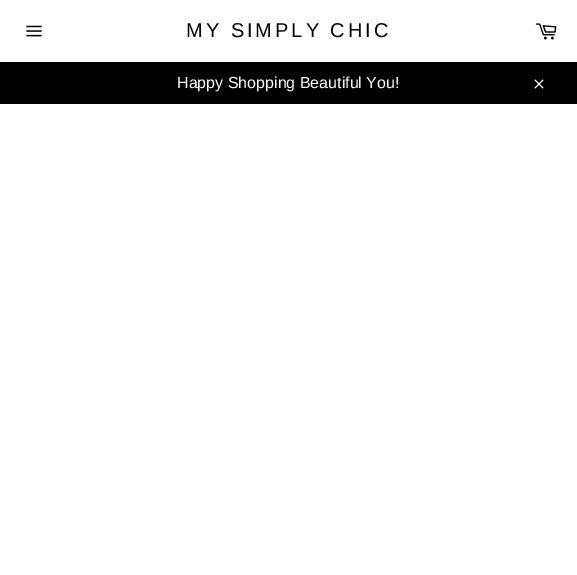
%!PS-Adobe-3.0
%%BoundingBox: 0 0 577 575
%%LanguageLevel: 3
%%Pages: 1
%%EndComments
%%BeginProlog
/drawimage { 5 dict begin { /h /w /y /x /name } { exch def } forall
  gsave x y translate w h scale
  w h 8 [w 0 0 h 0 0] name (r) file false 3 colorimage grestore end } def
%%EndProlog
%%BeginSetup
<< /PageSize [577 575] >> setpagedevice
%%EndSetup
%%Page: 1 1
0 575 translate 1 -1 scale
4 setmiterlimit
1 setgray
0 0 577 575 rectfill
(images/1.raw) 26 25 16 12 drawimage
(images/2.raw) 535 23 22 17 drawimage
0 setgray
0 62 577 42 rectfill
(images/3.raw) 534 79 10 10 drawimage
/LiberationSans-Regular [20 0 0 -20 0 0] selectfont
0.012 setgray
186 37 moveto 3 0 (MY SIMPLY CHIC) ashow
/LiberationSans-Regular [16 0 0 -16 0 0] selectfont
1 setgray
177 88 moveto (Happy Shopping Beautiful You!) show
showpage
%%EOF
